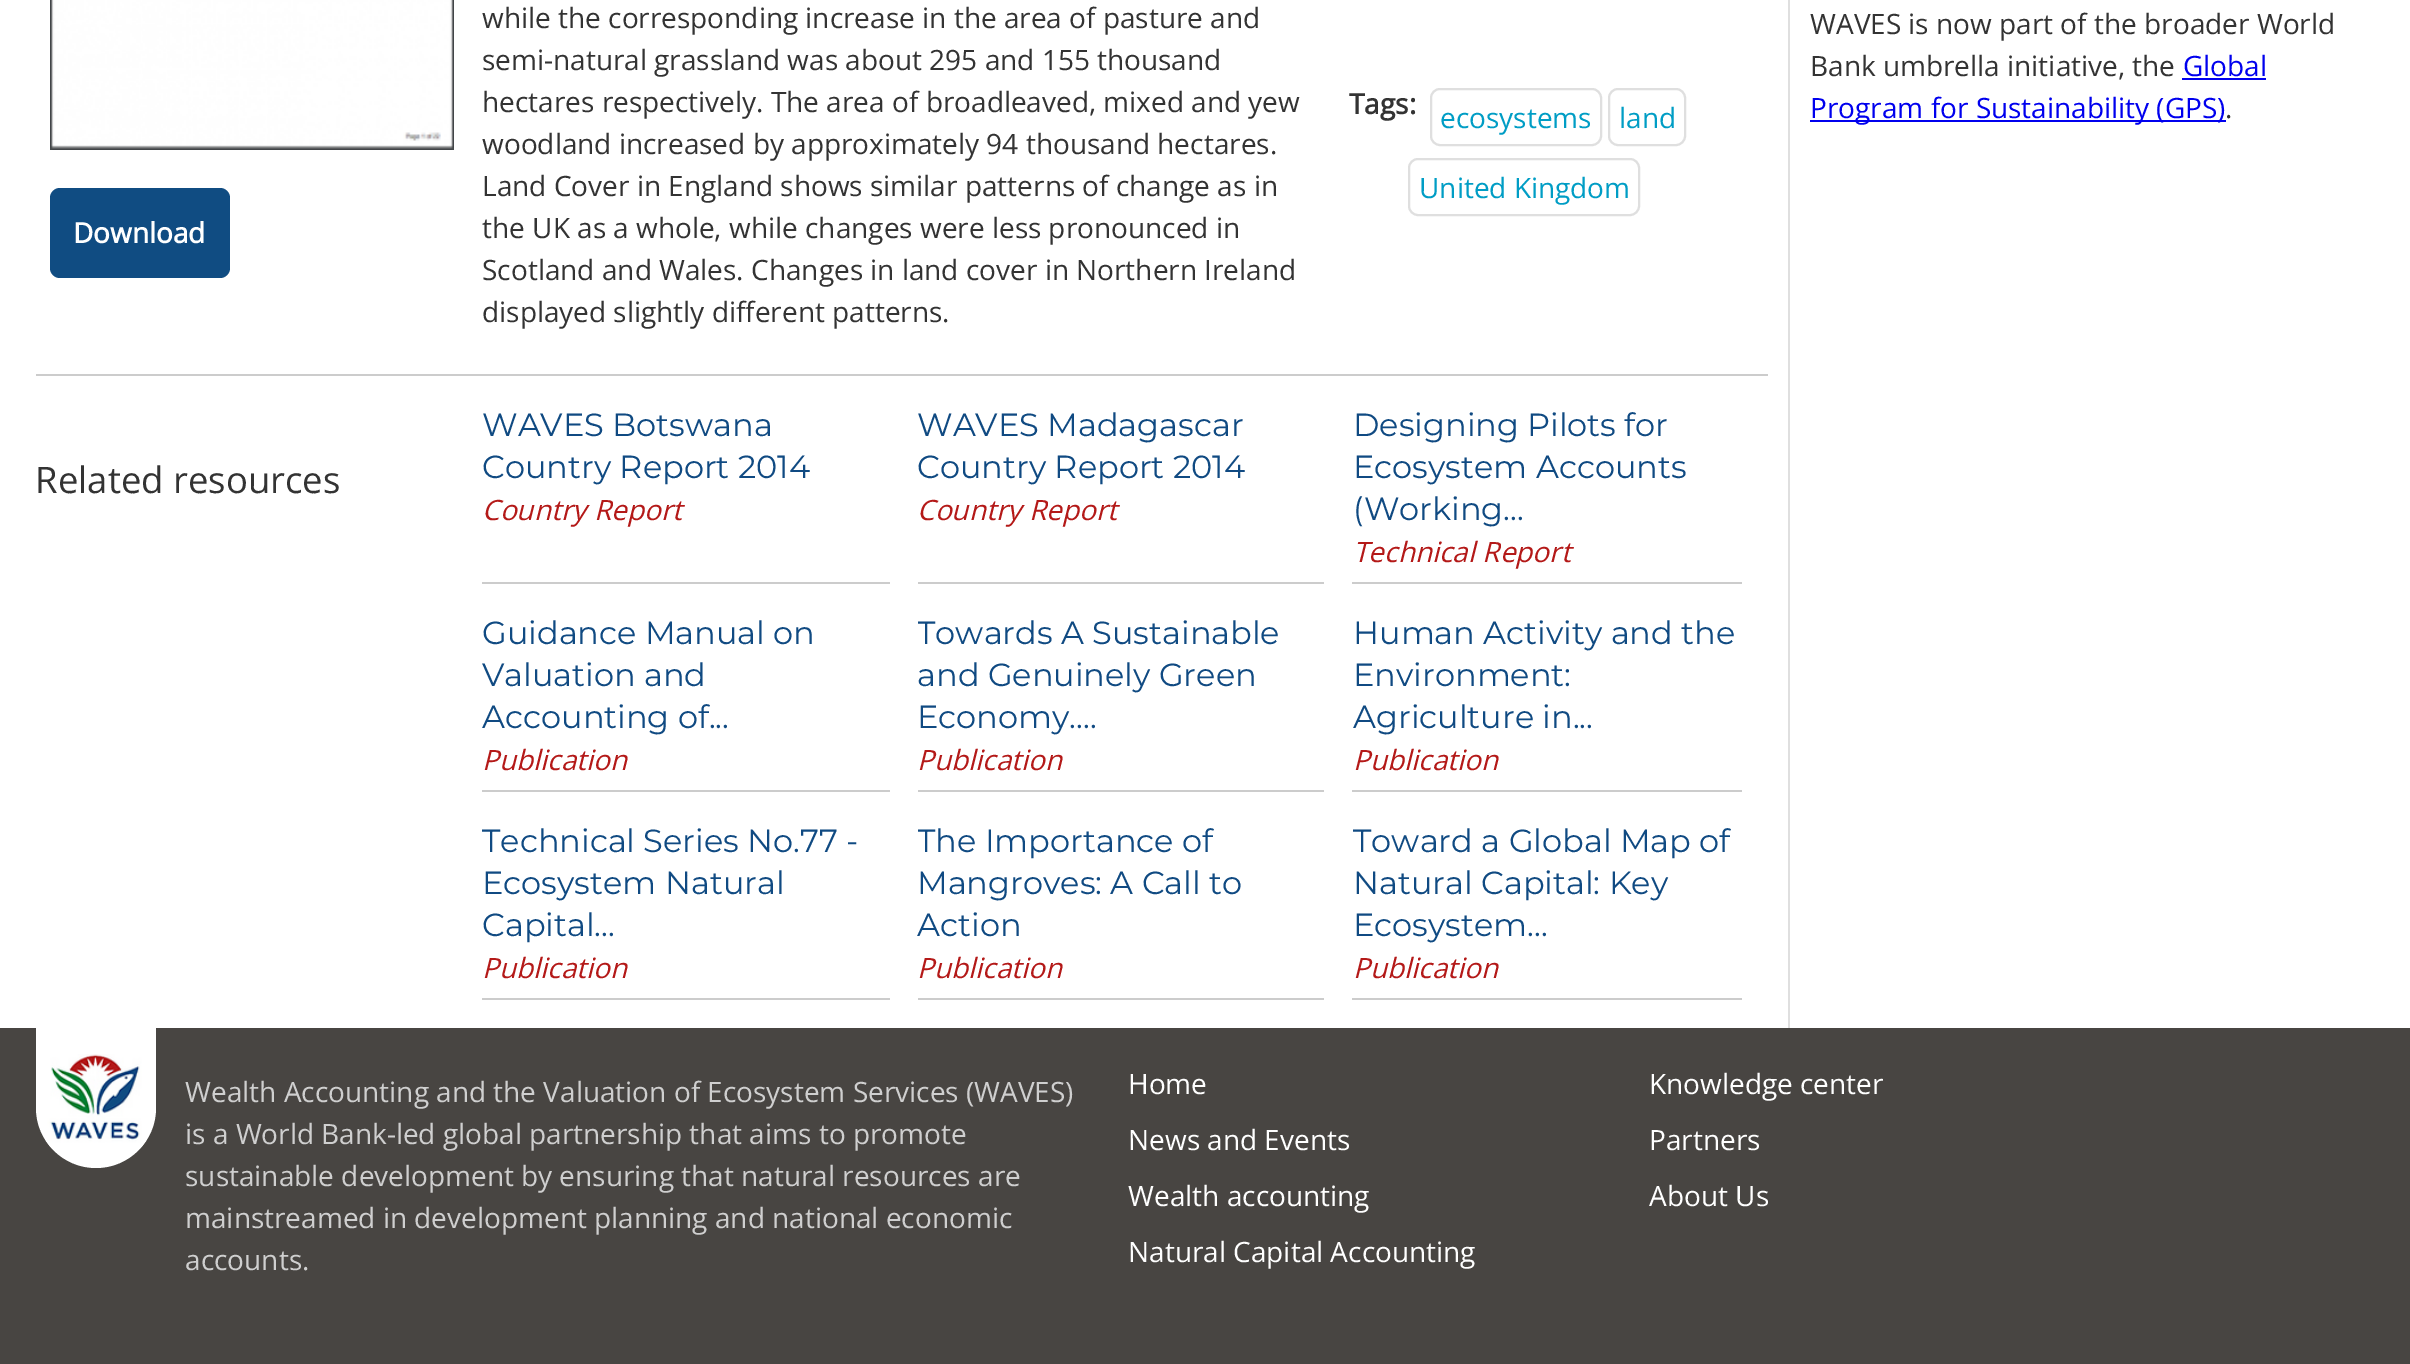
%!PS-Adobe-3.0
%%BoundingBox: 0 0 2410 1364
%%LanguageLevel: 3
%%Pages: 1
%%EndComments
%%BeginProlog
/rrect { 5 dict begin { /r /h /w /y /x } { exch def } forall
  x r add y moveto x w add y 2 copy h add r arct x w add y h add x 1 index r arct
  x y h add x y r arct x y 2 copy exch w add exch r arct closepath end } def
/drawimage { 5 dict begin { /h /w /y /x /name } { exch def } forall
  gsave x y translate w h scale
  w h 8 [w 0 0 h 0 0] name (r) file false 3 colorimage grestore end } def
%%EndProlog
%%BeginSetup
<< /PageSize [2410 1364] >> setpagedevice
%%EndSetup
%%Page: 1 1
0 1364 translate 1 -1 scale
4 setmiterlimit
1 setgray
0 0 2410 1364 rectfill
0.875 setgray
1788 0 2 1028 rectfill
2 setlinewidth
1431 89 170 56 9 rrect stroke
1609 89 76 56 9 rrect stroke
1409 159 230 56 9 rrect stroke
(images/1.raw) 50 0 404 150 drawimage
0.063 0.298 0.51 setrgbcolor
50 188 180 90 10 rrect fill
0.8 setgray
36 374 1732 2 rectfill
482 582 408 2 rectfill
918 582 406 2 rectfill
1352 582 390 2 rectfill
482 790 408 2 rectfill
918 790 406 2 rectfill
1352 790 390 2 rectfill
482 998 408 2 rectfill
918 998 406 2 rectfill
1352 998 390 2 rectfill
0 0 0.933 setrgbcolor
2182 78 84 2 rectfill
1810 120 416 2 rectfill
0.282 0.271 0.259 setrgbcolor
0 1028 2410 336 rectfill
1 setgray
newpath 36 1028 moveto 156 1028 lineto 156 1108 lineto 156 1141 129 1168 96 1168 curveto 63 1168 36 1141 36 1108 curveto closepath fill
(images/2.raw) 46 1054 100 94 drawimage
/OpenSans-Regular [28 0 0 -28 0 0] selectfont
0.2 setgray
482 28 moveto (while the corresponding increase in the area of pasture and) show
482 70 moveto (semi-natural grassland was about 295 and 155 thousand) show
482 112 moveto (hectares respectively. The area of broadleaved, mixed and yew) show
482 154 moveto (woodland increased by approximately 94 thousand hectares.) show
482 196 moveto (Land Cover in England shows similar patterns of change as in) show
482 238 moveto (the UK as a whole, while changes were less pronounced in) show
482 280 moveto (Scotland and Wales. Changes in land cover in Northern Ireland) show
482 322 moveto (displayed slightly different patterns.) show
/OpenSans-Bold [28 0 0 -28 0 0] selectfont
1349 114 moveto (Tags:) show
/OpenSans-Regular [28 0 0 -28 0 0] selectfont
0 0.616 0.773 setrgbcolor
1440 128 moveto (ecosystems) show
1619 128 moveto (land) show
1419 198 moveto (United Kingdom) show
/OpenSans-Bold [28 0 0 -28 0 0] selectfont
1 setgray
73 243 moveto (Download) show
/OpenSans-Regular [36.5 0 0 -36.5 0 0] selectfont
0.2 setgray
35 493 moveto (Related resources) show
/Montserrat-Regular [32 0 0 -32 0 0] selectfont
0.063 0.29 0.51 setrgbcolor
482 436 moveto (WAVES Botswana) show
482 478 moveto (Country Report 2014) show
/OpenSans-Italic [28 0 0 -28 0 0] selectfont
0.706 0.098 0.094 setrgbcolor
482 520 moveto (Country Report) show
/Montserrat-Regular [32 0 0 -32 0 0] selectfont
0.063 0.29 0.51 setrgbcolor
917 436 moveto (WAVES Madagascar) show
917 478 moveto (Country Report 2014) show
/OpenSans-Italic [28 0 0 -28 0 0] selectfont
0.706 0.098 0.094 setrgbcolor
917 520 moveto (Country Report) show
/Montserrat-Regular [32 0 0 -32 0 0] selectfont
0.063 0.29 0.51 setrgbcolor
1353 436 moveto (Designing Pilots for) show
1353 478 moveto (Ecosystem Accounts) show
1353 520 moveto (\(Working...) show
/OpenSans-Italic [28 0 0 -28 0 0] selectfont
0.706 0.098 0.094 setrgbcolor
1353 562 moveto (Technical Report) show
/Montserrat-Regular [32 0 0 -32 0 0] selectfont
0.063 0.29 0.51 setrgbcolor
482 644 moveto (Guidance Manual on) show
482 686 moveto (Valuation and) show
482 728 moveto (Accounting of...) show
/OpenSans-Italic [28 0 0 -28 0 0] selectfont
0.706 0.098 0.094 setrgbcolor
482 770 moveto (Publication) show
gsave
918 612 406 178 rectclip
/Montserrat-Regular [32 0 0 -32 0 0] selectfont
0.063 0.29 0.51 setrgbcolor
917 644 moveto (Towards A Sustainable) show
grestore
/Montserrat-Regular [32 0 0 -32 0 0] selectfont
0.063 0.29 0.51 setrgbcolor
917 686 moveto (and Genuinely Green) show
917 728 moveto (Economy....) show
/OpenSans-Italic [28 0 0 -28 0 0] selectfont
0.706 0.098 0.094 setrgbcolor
917 770 moveto (Publication) show
/Montserrat-Regular [32 0 0 -32 0 0] selectfont
0.063 0.29 0.51 setrgbcolor
1353 644 moveto (Human Activity and the) show
1353 686 moveto (Environment:) show
1353 728 moveto (Agriculture in...) show
/OpenSans-Italic [28 0 0 -28 0 0] selectfont
0.706 0.098 0.094 setrgbcolor
1353 770 moveto (Publication) show
/Montserrat-Regular [32 0 0 -32 0 0] selectfont
0.063 0.29 0.51 setrgbcolor
482 852 moveto (Technical Series No.77 -) show
482 894 moveto (Ecosystem Natural) show
482 936 moveto (Capital...) show
/OpenSans-Italic [28 0 0 -28 0 0] selectfont
0.706 0.098 0.094 setrgbcolor
482 978 moveto (Publication) show
gsave
918 820 406 178 rectclip
/Montserrat-Regular [32 0 0 -32 0 0] selectfont
0.063 0.29 0.51 setrgbcolor
917 852 moveto (The Importance of) show
grestore
/Montserrat-Regular [32 0 0 -32 0 0] selectfont
0.063 0.29 0.51 setrgbcolor
917 894 moveto (Mangroves: A Call to) show
917 936 moveto (Action) show
/OpenSans-Italic [28 0 0 -28 0 0] selectfont
0.706 0.098 0.094 setrgbcolor
917 978 moveto (Publication) show
/Montserrat-Regular [32 0 0 -32 0 0] selectfont
0.063 0.29 0.51 setrgbcolor
1353 852 moveto (Toward a Global Map of) show
1353 894 moveto (Natural Capital: Key) show
1353 936 moveto (Ecosystem...) show
/OpenSans-Italic [28 0 0 -28 0 0] selectfont
0.706 0.098 0.094 setrgbcolor
1353 978 moveto (Publication) show
/OpenSans-Regular [28 0 0 -28 0 0] selectfont
0.2 setgray
1810 34 moveto (WAVES is now part of the broader World) show
1810 76 moveto (Bank umbrella initiative, the) show
0 0 0.933 setrgbcolor
2183 76 moveto (Global) show
1810 118 moveto (Program for Sustainability \(GPS\)) show
0.2 setgray
2225 118 moveto (.) show
0.812 setgray
185 1102 moveto (Wealth Accounting and the Valuation of Ecosystem Services \(WAVES\)) show
185 1144 moveto (is a World Bank-led global partnership that aims to promote) show
185 1186 moveto (sustainable development by ensuring that natural resources are) show
185 1228 moveto (mainstreamed in development planning and national economic) show
185 1270 moveto (accounts.) show
1 setgray
1128 1094 moveto (Home) show
1649 1094 moveto (Knowledge center) show
1128 1150 moveto (News and Events) show
1649 1150 moveto (Partners) show
1128 1206 moveto (Wealth accounting) show
1649 1206 moveto (About Us) show
1128 1262 moveto (Natural Capital Accounting) show
showpage
%%EOF
